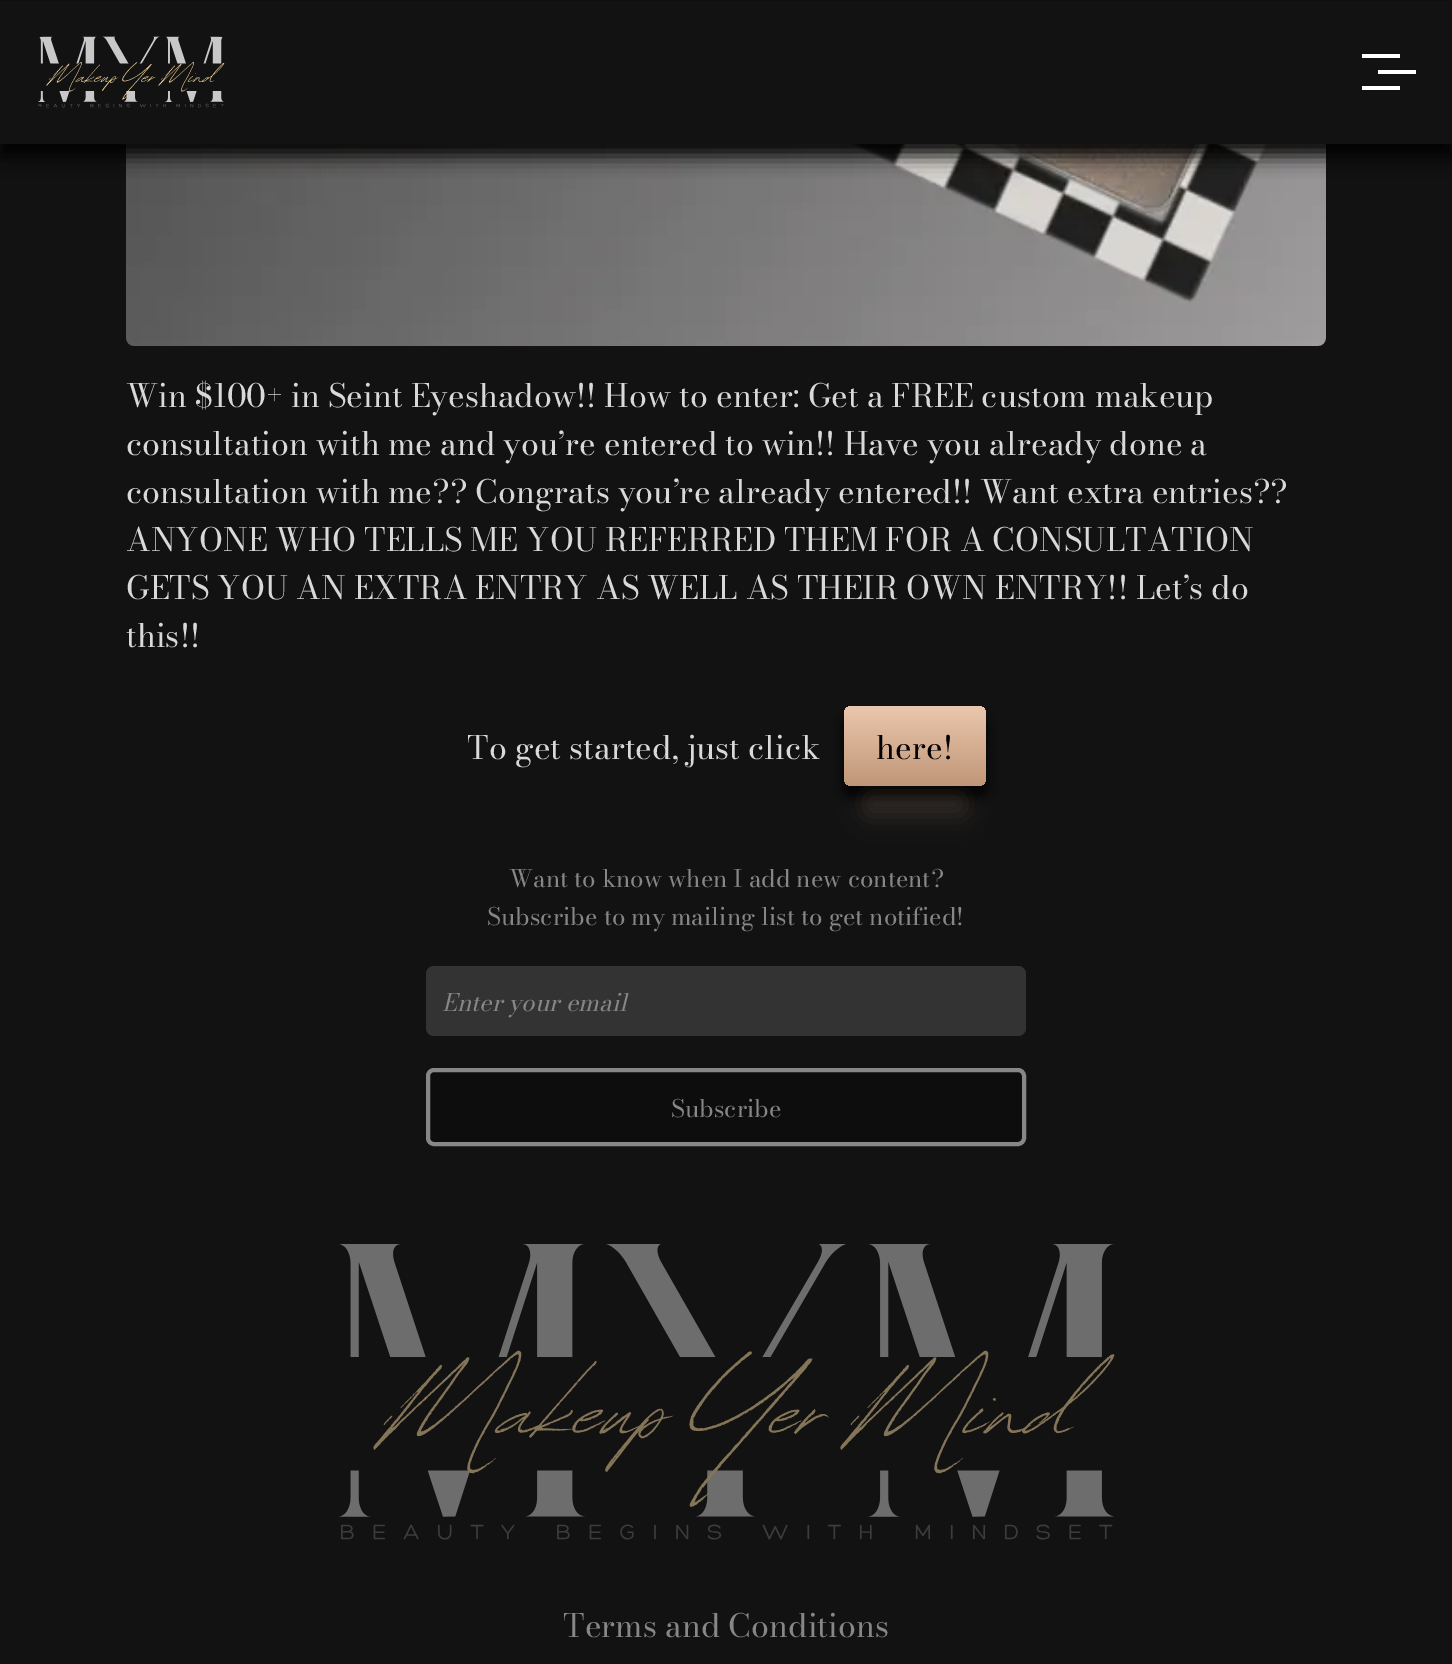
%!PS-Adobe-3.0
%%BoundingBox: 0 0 1452 1664
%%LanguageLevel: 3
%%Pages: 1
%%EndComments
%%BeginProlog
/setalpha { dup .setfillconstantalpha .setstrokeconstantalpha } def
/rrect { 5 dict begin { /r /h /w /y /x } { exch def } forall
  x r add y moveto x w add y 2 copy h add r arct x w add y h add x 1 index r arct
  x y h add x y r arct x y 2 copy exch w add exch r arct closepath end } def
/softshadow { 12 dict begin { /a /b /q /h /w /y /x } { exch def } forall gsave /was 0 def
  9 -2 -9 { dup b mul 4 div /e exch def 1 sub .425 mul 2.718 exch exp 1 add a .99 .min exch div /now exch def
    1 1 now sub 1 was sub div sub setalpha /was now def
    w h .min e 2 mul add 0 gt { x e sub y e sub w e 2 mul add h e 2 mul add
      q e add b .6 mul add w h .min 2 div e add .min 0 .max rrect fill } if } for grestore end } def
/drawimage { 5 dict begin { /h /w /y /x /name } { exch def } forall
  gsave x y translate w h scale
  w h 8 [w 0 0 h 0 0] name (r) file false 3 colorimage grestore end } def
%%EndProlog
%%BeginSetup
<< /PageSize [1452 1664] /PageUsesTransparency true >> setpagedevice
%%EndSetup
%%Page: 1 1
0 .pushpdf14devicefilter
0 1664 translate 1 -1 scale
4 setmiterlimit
0.071 setgray
0 0 1452 1664 rectfill
(images/2.raw) 126 144 1200 202 drawimage
0 setgray
0 12 1452 144 0 10 1 softshadow
0.071 setgray
0 1 1452 143 rectfill
(images/1.raw) 38 36 187 72 drawimage
1 setgray
1378 70 38 4 rectfill
1362 54 38 4 rectfill
1362 86 38 4 rectfill
0 setgray
844 718 142 80 8 6 1 softshadow
gsave 844 706 142 80 8 rrect clip newpath
<< /ShadingType 2 /ColorSpace /DeviceRGB /Coords [915 706 915 786] /Extend [true true] /Function << /FunctionType 2 /Domain [0 1] /C0 [0.922 0.78 0.678] /C1 [0.753 0.588 0.471] /N 1 >> >> shfill grestore
0.839 0.686 0.576 setrgbcolor
864 792 102 24 12 12 0.15 softshadow
0.2 setgray
426 966 600 70 8 rrect fill
0.051 setgray
428 1070 596 74 6 rrect gsave fill grestore
0.529 setgray
4 setlinewidth
stroke
(images/3.raw) 338 1244 777 296 drawimage
/BodoniModa-Regular [32 0 0 -32 0 0] selectfont
0.851 setgray
126 407 moveto (Win $100+ in Seint Eyeshadow!! How to enter: Get a FREE custom makeup) show
126 455 moveto (consultation with me and you’re entered to win!! Have you already done a) show
126 503 moveto (consultation with me?? Congrats you’re already entered!! Want extra entries??) show
126 551 moveto (ANYONE WHO TELLS ME YOU REFERRED THEM FOR A CONSULTATION) show
126 599 moveto (GETS YOU AN EXTRA ENTRY AS WELL AS THEIR OWN ENTRY!! Let’s do) show
126 647 moveto (this!!) show
467 759 moveto (To get started, just click) show
0 setgray
876 759 moveto (here!) show
/BodoniModa-Regular [24 0 0 -24 0 0] selectfont
0.529 setgray
509 887 moveto (Want to know when I add new content?) show
487 925 moveto (Subscribe to my mailing list to get notified!) show
/BodoniModa-Italic [24 0 0 -24 0 0] selectfont
442 1011 moveto (Enter your email) show
/BodoniModa-Regular [24 0 0 -24 0 0] selectfont
671 1117 moveto (Subscribe) show
/BodoniModa-Regular [32 0 0 -32 0 0] selectfont
563 1637 moveto (Terms and Conditions) show
.poppdf14devicefilter showpage
%%EOF
